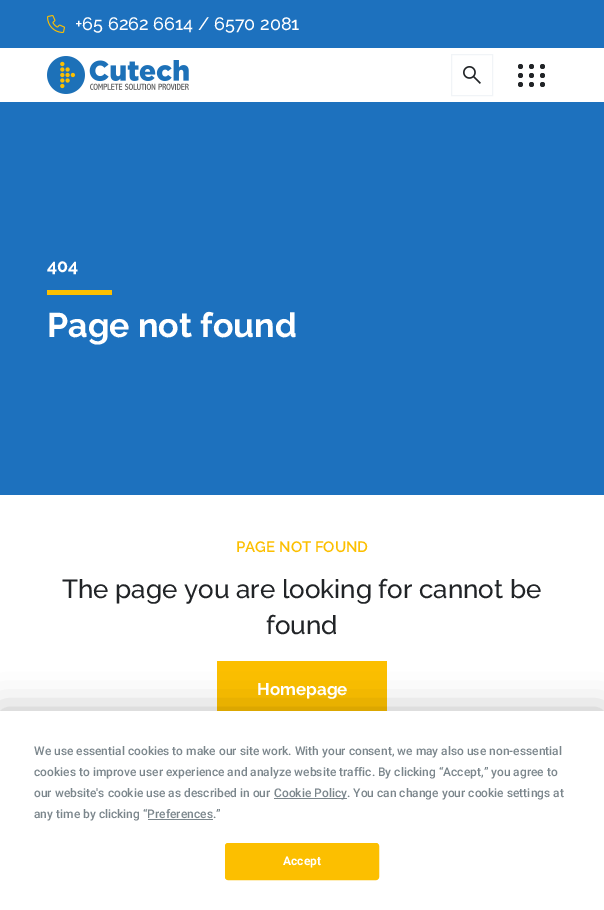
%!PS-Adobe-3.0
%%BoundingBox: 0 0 604 910
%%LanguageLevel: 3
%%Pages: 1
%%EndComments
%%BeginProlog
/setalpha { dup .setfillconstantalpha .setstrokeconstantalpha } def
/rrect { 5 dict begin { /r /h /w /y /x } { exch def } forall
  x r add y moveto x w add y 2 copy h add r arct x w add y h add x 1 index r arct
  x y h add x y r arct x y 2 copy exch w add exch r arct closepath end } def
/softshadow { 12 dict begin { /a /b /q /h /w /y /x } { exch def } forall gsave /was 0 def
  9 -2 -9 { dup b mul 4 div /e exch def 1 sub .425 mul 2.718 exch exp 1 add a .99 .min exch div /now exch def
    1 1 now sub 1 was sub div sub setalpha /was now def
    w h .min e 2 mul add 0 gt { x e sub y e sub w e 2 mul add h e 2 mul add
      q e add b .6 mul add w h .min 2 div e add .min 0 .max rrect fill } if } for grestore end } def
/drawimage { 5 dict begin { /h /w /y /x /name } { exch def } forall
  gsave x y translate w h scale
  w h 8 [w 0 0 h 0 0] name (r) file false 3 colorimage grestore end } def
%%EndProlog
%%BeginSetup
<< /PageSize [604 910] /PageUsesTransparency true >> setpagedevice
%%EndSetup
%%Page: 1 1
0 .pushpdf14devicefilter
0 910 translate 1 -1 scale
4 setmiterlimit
1 setgray
0 0 604 910 rectfill
0.114 0.443 0.745 setrgbcolor
0 0 604 48 rectfill
(images/1.raw) 47 15 18 18 drawimage
(images/2.raw) 47 56 142 38 drawimage
0.06 setalpha
0.055 0.247 0.494 setrgbcolor
451.5 54.5 41 41 rectstroke
1 setalpha
(images/3.raw) 463 66 18 18 drawimage
0.129 0.141 0.153 setrgbcolor
newpath 520.5 66.5 2.5 0 360 arc closepath fill
newpath 531.5 66.5 2.5 0 360 arc closepath fill
newpath 542.5 66.5 2.5 0 360 arc closepath fill
newpath 520.5 75.5 2.5 0 360 arc closepath fill
newpath 531.5 75.5 2.5 0 360 arc closepath fill
newpath 542.5 75.5 2.5 0 360 arc closepath fill
newpath 520.5 84.5 2.5 0 360 arc closepath fill
newpath 531.5 84.5 2.5 0 360 arc closepath fill
newpath 542.5 84.5 2.5 0 360 arc closepath fill
0.114 0.443 0.745 setrgbcolor
0 102 604 393 rectfill
0.988 0.749 0 setrgbcolor
47 290 65 5 rectfill
217 661 170 50 rectfill
0 setgray
0 711 604 199 0 17.5 0.25 softshadow
1 setgray
0 711 604 199 rectfill
0.482 0.525 0.549 setrgbcolor
274 798 73 1 rectfill
148 819 65 1 rectfill
0.988 0.749 0 setrgbcolor
225.5 843.5 153 36 2.5 rrect gsave fill grestore
stroke
/Raleway-Medium [18 0 0 -18 0 0] selectfont
1 setgray
75 30 moveto (+65 6262 6614 / 6570 2081) show
/Raleway-Bold [18 0 0 -18 0 0] selectfont
47 272 moveto (404) show
/Raleway-Bold [34 0 0 -34 0 0] selectfont
47 337 moveto (Page not found) show
/Raleway-SemiBold [15 0 0 -15 0 0] selectfont
0.988 0.749 0 setrgbcolor
236 552 moveto (PAGE NOT FOUND) show
/Raleway-Medium [26 0 0 -26 0 0] selectfont
0.129 0.141 0.153 setrgbcolor
62 598 moveto (The page you are looking for cannot be) show
266 634 moveto (found) show
/Raleway-Bold [17 0 0 -17 0 0] selectfont
1 setgray
257 695 moveto (Homepage) show
/Roboto-Medium [12 0 0 -12 0 0] selectfont
0.482 0.525 0.549 setrgbcolor
34 755 moveto (We use essential cookies to make our site work. With your consent, we may also use non-essential) show
34 776 moveto (cookies to improve user experience and analyze website traffic. By clicking “Accept,” you agree to) show
34 797 moveto (our website's cookie use as described in our) show
274 797 moveto (Cookie Policy. You can change your cookie settings at) show
34 818 moveto (any time by clicking “Preferences.”) show
/Roboto-Bold [12 0 0 -12 0 0] selectfont
1 setgray
283 865 moveto (Accept) show
.poppdf14devicefilter showpage
%%EOF
